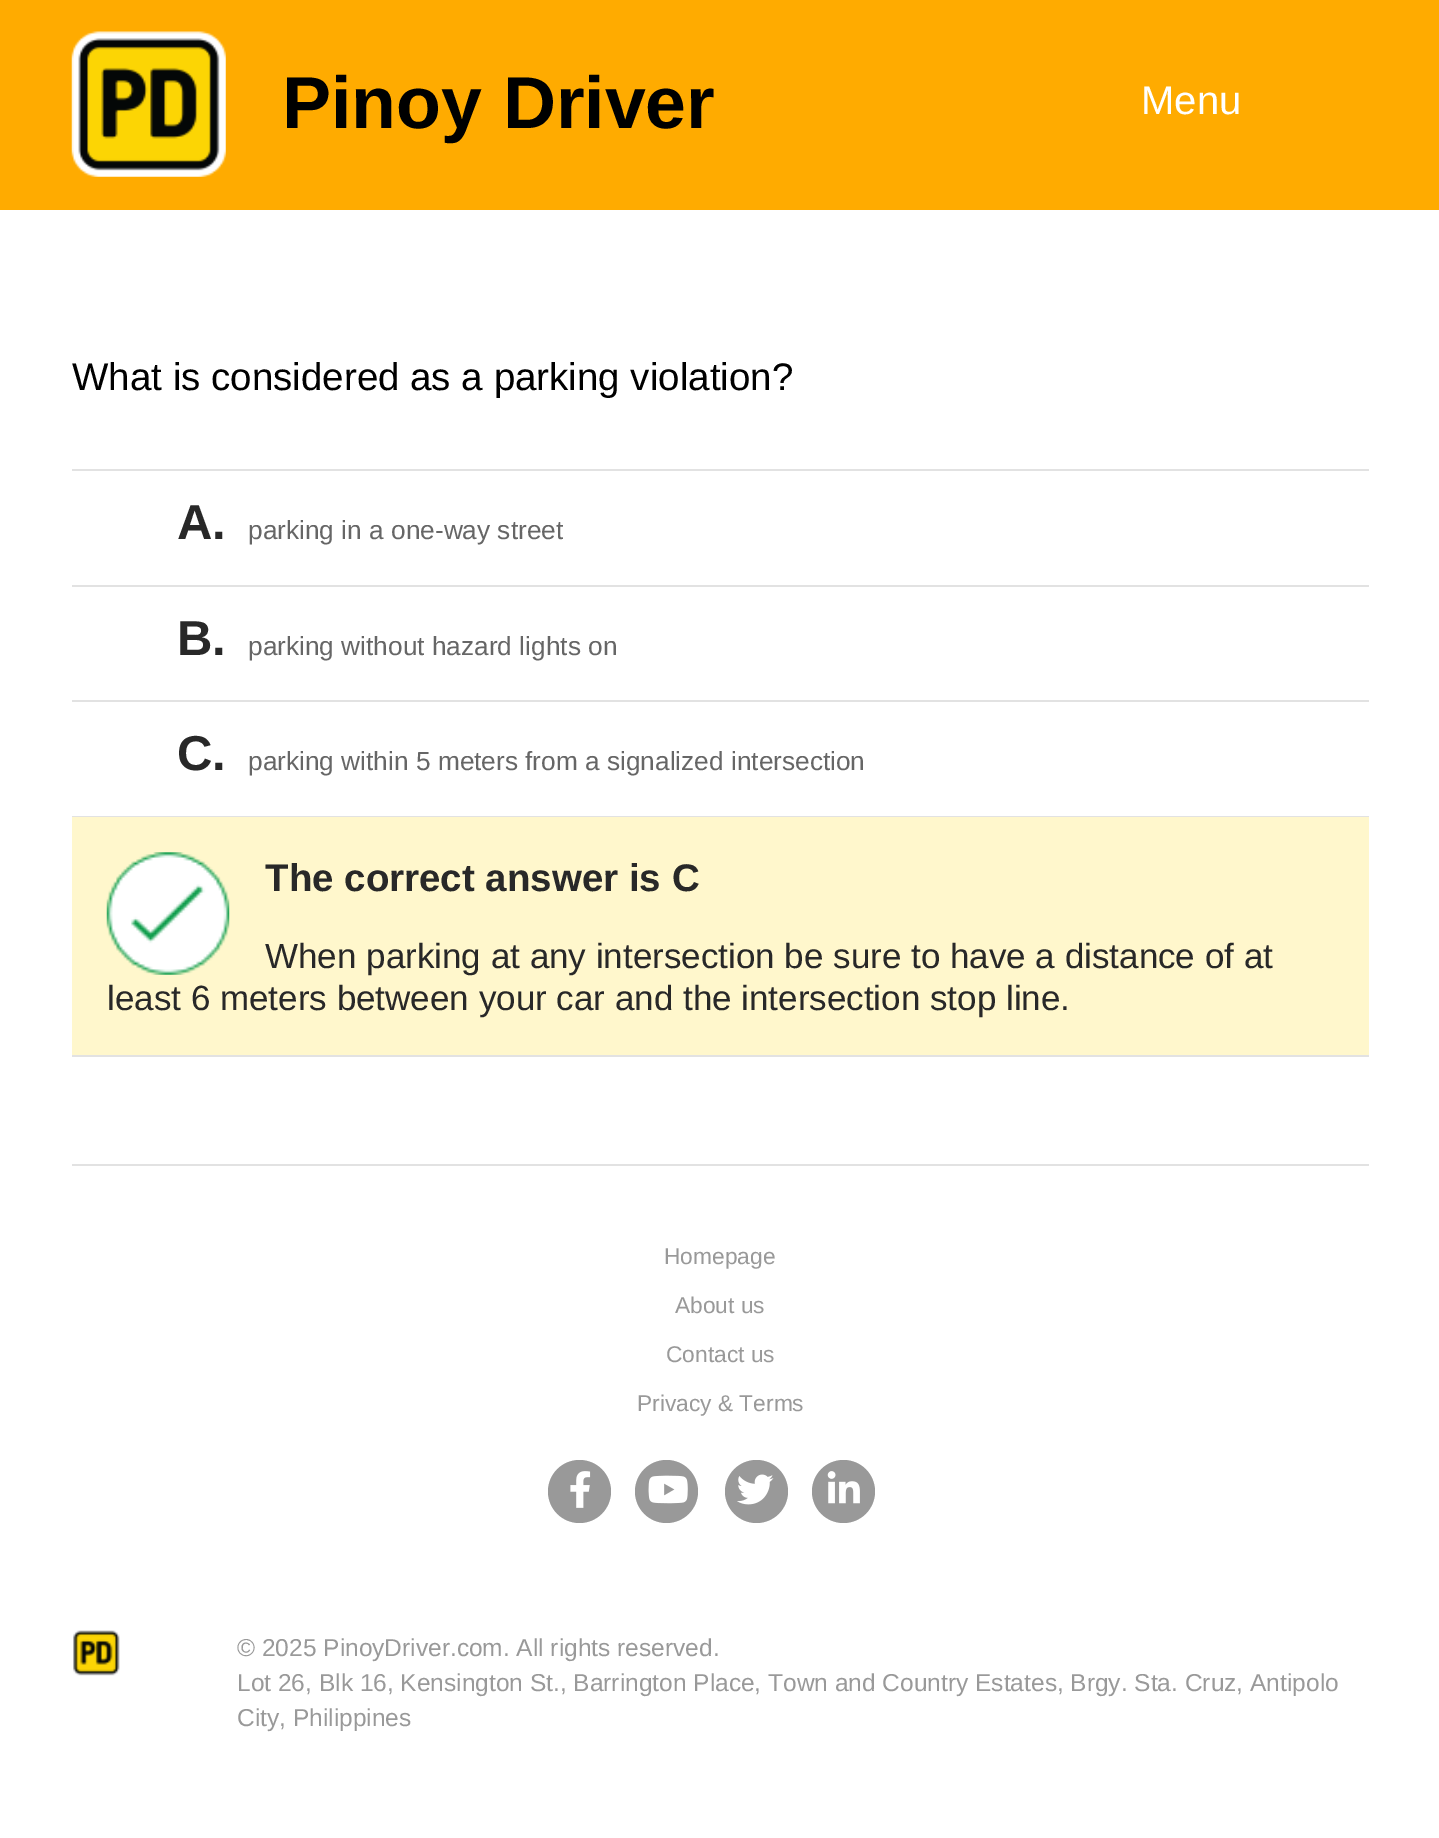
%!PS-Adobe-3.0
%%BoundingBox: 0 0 1439 1838
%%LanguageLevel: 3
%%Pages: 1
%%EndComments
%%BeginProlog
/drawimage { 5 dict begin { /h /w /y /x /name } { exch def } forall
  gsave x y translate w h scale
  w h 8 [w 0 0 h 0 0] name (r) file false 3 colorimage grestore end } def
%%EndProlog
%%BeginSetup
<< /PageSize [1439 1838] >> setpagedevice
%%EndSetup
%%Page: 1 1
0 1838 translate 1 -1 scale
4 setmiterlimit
1 setgray
0 0 1439 1838 rectfill
1 0.671 0 setrgbcolor
0 0 1439 210 rectfill
(images/1.raw) 71 31 155 146 drawimage
0.886 setgray
72 469 1297 2 rectfill
72 585 1297 2 rectfill
72 700 1297 2 rectfill
72 816 1297 1 rectfill
1 0.969 0.8 setrgbcolor
72 817 1297 238 rectfill
0.886 setgray
72 1055 1297 2 rectfill
(images/2.raw) 106 852 124 123 drawimage
72 1164 1297 2 rectfill
0.6 setgray
newpath 579.5 1491.5 31.5 0 360 arc closepath fill
(images/3.raw) 570 1471 21 37 drawimage
newpath 666.5 1491.5 31.5 0 360 arc closepath fill
(images/4.raw) 648 1475 40 29 drawimage
newpath 756.5 1491.5 31.5 0 360 arc closepath fill
(images/5.raw) 737 1474 37 31 drawimage
newpath 843.5 1491.5 31.5 0 360 arc closepath fill
(images/6.raw) 827 1471 33 33 drawimage
(images/7.raw) 73 1630 47 46 drawimage
/LiberationSans-Bold [73.5 0 0 -73.5 0 0] selectfont
0 setgray
282 128 moveto (Pinoy Driver) show
/LiberationSans-Regular [40 0 0 -40 0 0] selectfont
1 setgray
1141 114 moveto (Menu) show
/LiberationSans-Regular [38.5 0 0 -38.5 0 0] selectfont
0 setgray
72 390 moveto (What is considered as a parking violation?) show
/LiberationSans-Bold [49 0 0 -49 0 0] selectfont
0.157 setgray
177 539 moveto (A.) show
/LiberationSans-Regular [26.25 0 0 -26.25 0 0] selectfont
0.4 setgray
248 539 moveto (parking in a one-way street) show
/LiberationSans-Bold [49 0 0 -49 0 0] selectfont
0.157 setgray
177 655 moveto (B.) show
/LiberationSans-Regular [26.25 0 0 -26.25 0 0] selectfont
0.4 setgray
248 655 moveto (parking without hazard lights on) show
/LiberationSans-Bold [49 0 0 -49 0 0] selectfont
0.157 setgray
177 770 moveto (C.) show
/LiberationSans-Regular [26.25 0 0 -26.25 0 0] selectfont
0.4 setgray
248 770 moveto (parking within 5 meters from a signalized intersection) show
/LiberationSans-Bold [38.5 0 0 -38.5 0 0] selectfont
0.157 setgray
265 891 moveto (The correct answer is C) show
/LiberationSans-Regular [35 0 0 -35 0 0] selectfont
265 968 moveto (When parking at any intersection be sure to have a distance of at) show
107 1010 moveto (least 6 meters between your car and the intersection stop line.) show
/LiberationSans-Regular [22.75 0 0 -22.75 0 0] selectfont
0.6 setgray
664 1264 moveto (Homepage) show
675 1313 moveto (About us) show
666 1362 moveto (Contact us) show
637 1411 moveto (Privacy & Terms) show
/LiberationSans-Regular [24.5 0 0 -24.5 0 0] selectfont
237 1656 moveto (© 2025 PinoyDriver.com. All rights reserved.) show
237 1691 moveto (Lot 26, Blk 16, Kensington St., Barrington Place, Town and Country Estates, Brgy. Sta. Cruz, Antipolo) show
237 1726 moveto (City, Philippines) show
showpage
%%EOF
